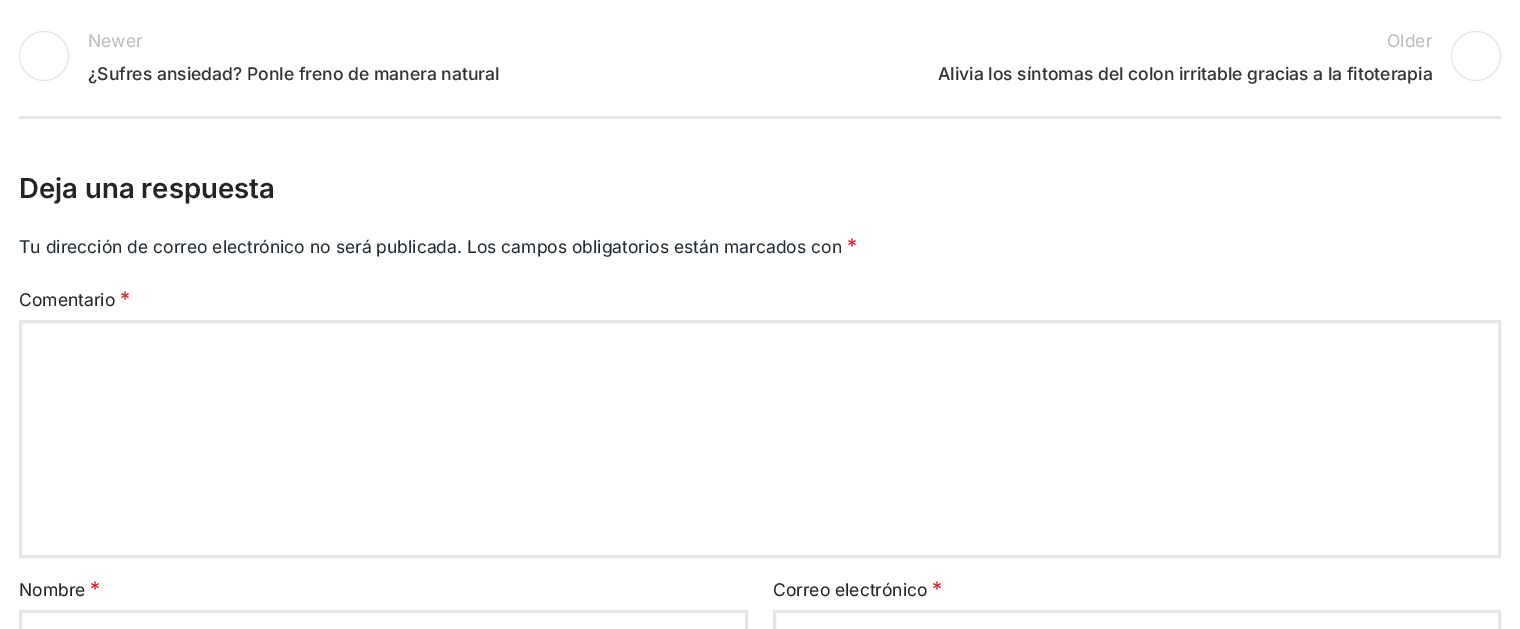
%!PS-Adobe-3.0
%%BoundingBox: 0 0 1520 629
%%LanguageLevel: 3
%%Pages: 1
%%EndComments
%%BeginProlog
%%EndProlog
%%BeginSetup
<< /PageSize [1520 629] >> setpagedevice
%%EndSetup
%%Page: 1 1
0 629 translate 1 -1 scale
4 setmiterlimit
1 setgray
0 0 1520 629 rectfill
0.894 setgray
19 116 1482 3 rectfill
newpath 44 56 24.5 0 360 arc closepath stroke
newpath 1476 56 24.5 0 360 arc closepath stroke
0.902 setgray
3 setlinewidth
20.5 321.5 1479 235 rectstroke
20.5 611.5 726 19 rectstroke
774.5 611.5 725 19 rectstroke
/Inter-Regular [17.5 0 0 -17.5 0 0] selectfont
0.733 setgray
88 47 moveto (Newer) show
/Inter-Medium [17.5 0 0 -17.5 0 0] selectfont
0.2 setgray
88 80 moveto (¿Sufres ansiedad? Ponle freno de manera natural) show
/Inter-Regular [17.5 0 0 -17.5 0 0] selectfont
0.733 setgray
1387 47 moveto (Older) show
/Inter-Medium [17.5 0 0 -17.5 0 0] selectfont
0.2 setgray
938 80 moveto (Alivia los síntomas del colon irritable gracias a la fitoterapia) show
/Inter-SemiBold [27.5 0 0 -27.5 0 0] selectfont
0.141 setgray
19 198 moveto (Deja una respuesta) show
/Inter-Regular [17.5 0 0 -17.5 0 0] selectfont
0.129 0.169 0.212 setrgbcolor
19 253 moveto (Tu dirección de correo electrónico no será publicada. Los campos obligatorios están marcados con) show
/Inter-Regular [20 0 0 -20 0 0] selectfont
0.878 0.063 0.125 setrgbcolor
847 253 moveto (*) show
/Inter-Regular [17.5 0 0 -17.5 0 0] selectfont
0.141 setgray
19 306 moveto (Comentario) show
/Inter-Regular [20 0 0 -20 0 0] selectfont
0.878 0.063 0.125 setrgbcolor
120 306 moveto (*) show
/Inter-Regular [17.5 0 0 -17.5 0 0] selectfont
0.141 setgray
19 596 moveto (Nombre) show
/Inter-Regular [20 0 0 -20 0 0] selectfont
0.878 0.063 0.125 setrgbcolor
90 596 moveto (*) show
/Inter-Regular [17.5 0 0 -17.5 0 0] selectfont
0.141 setgray
773 596 moveto (Correo electrónico) show
/Inter-Regular [20 0 0 -20 0 0] selectfont
0.878 0.063 0.125 setrgbcolor
932 596 moveto (*) show
showpage
%%EOF
